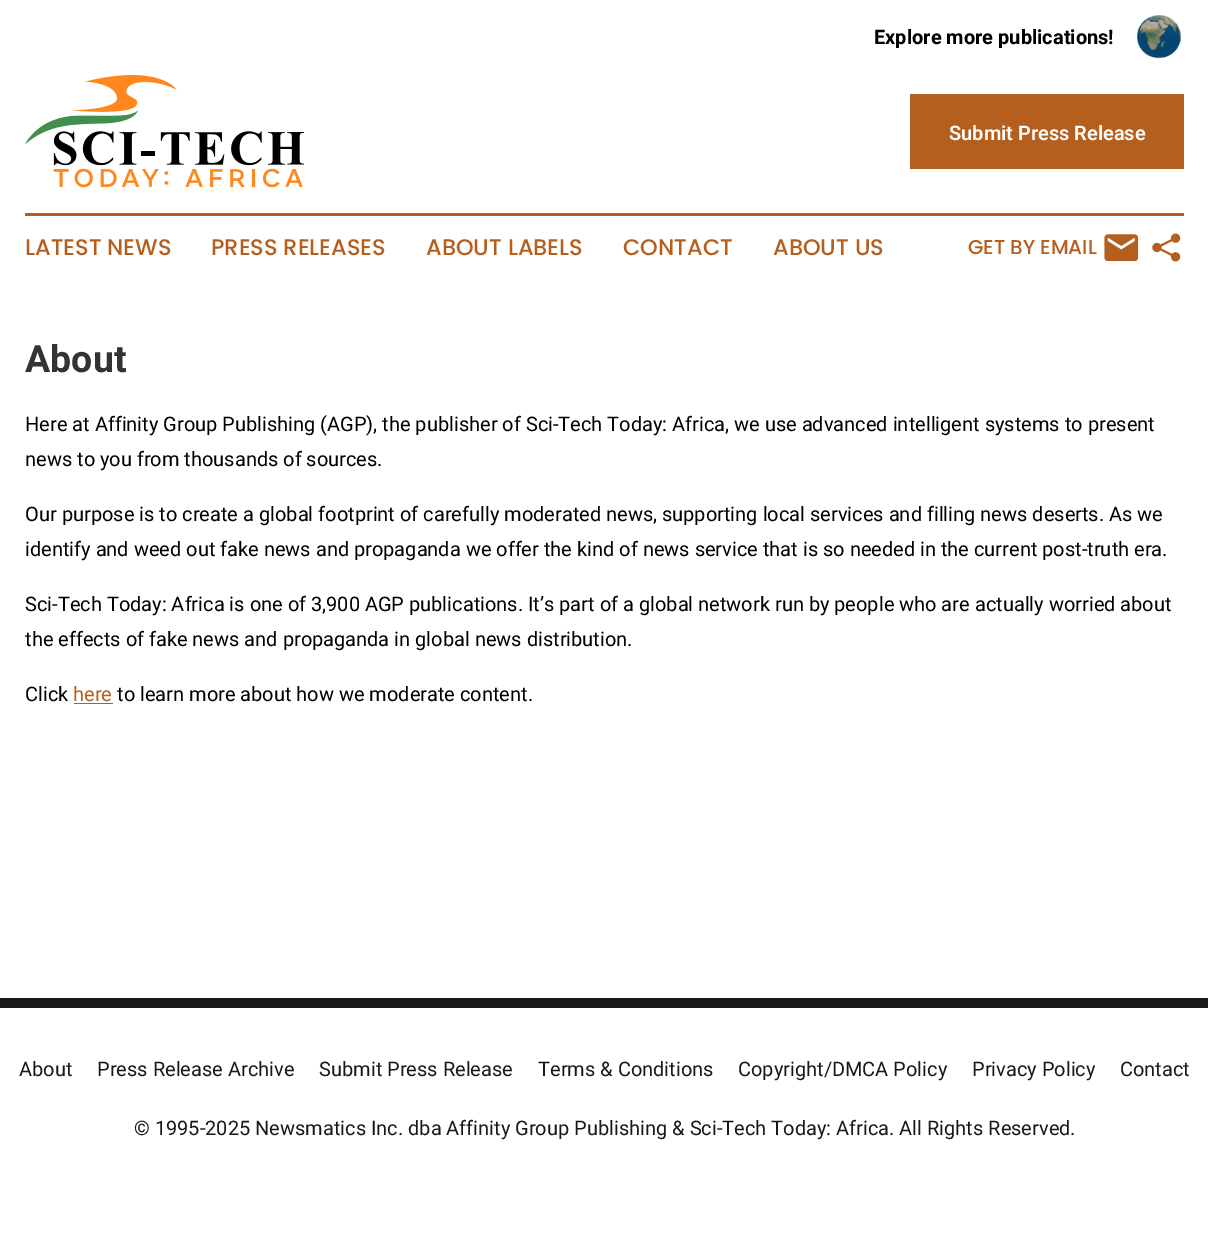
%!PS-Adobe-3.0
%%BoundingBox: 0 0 1208 1259
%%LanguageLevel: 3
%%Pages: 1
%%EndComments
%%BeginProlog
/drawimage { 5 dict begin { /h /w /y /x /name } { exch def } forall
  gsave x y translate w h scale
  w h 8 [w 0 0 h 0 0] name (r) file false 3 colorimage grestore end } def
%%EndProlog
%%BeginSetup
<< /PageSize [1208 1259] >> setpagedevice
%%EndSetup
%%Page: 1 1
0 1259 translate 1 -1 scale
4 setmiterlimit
1 setgray
0 0 1208 1259 rectfill
(images/1.raw) 1137 15 45 44 drawimage
(images/2.raw) 25 75 279 113 drawimage
0.71 0.373 0.122 setrgbcolor
910 94 274 75 rectfill
25 213 1159 3 rectfill
(images/3.raw) 1104 234 35 27 drawimage
(images/4.raw) 1152 233 29 29 drawimage
74 703 39 1 rectfill
0.098 setgray
0 998 1208 10 rectfill
/Roboto-Bold [20 0 0 -20 0 0] selectfont
0 setgray
874 44 moveto (Explore more publications!) show
/Roboto-SemiBold [20 0 0 -20 0 0] selectfont
1 setgray
949 140 moveto (Submit Press Release) show
/Poppins-Medium [22.5 0 0 -22.5 0 0] selectfont
0.71 0.373 0.122 setrgbcolor
25 255 moveto (LATEST NEWS) show
211 255 moveto (PRESS RELEASES) show
426 255 moveto (ABOUT LABELS) show
623 255 moveto (CONTACT) show
773 255 moveto (ABOUT US) show
/Poppins-Medium [20 0 0 -20 0 0] selectfont
968 254 moveto (GET BY EMAIL) show
/Roboto-Bold [37.5 0 0 -37.5 0 0] selectfont
0.2 setgray
25 372 moveto (About) show
/Roboto-Regular [20 0 0 -20 0 0] selectfont
0 setgray
25 431 moveto (Here at Affinity Group Publishing \(AGP\), the publisher of Sci-Tech Today: Africa, we use advanced intelligent systems to present) show
25 466 moveto (news to you from thousands of sources.) show
25 521 moveto (Our purpose is to create a global footprint of carefully moderated news, supporting local services and filling news deserts. As we) show
25 556 moveto (identify and weed out fake news and propaganda we offer the kind of news service that is so needed in the current post-truth era.) show
25 611 moveto (Sci-Tech Today: Africa is one of 3,900 AGP publications. It’s part of a global network run by people who are actually worried about) show
25 646 moveto (the effects of fake news and propaganda in global news distribution.) show
25 701 moveto (Click) show
0.71 0.373 0.122 setrgbcolor
73 701 moveto (here) show
0 setgray
117 701 moveto (to learn more about how we moderate content.) show
0.098 setgray
19 1076 moveto (About) show
97 1076 moveto (Press Release Archive) show
319 1076 moveto (Submit Press Release) show
538 1076 moveto (Terms & Conditions) show
738 1076 moveto (Copyright/DMCA Policy) show
972 1076 moveto (Privacy Policy) show
1120 1076 moveto (Contact) show
134 1135 moveto (© 1995-2025 Newsmatics Inc. dba Affinity Group Publishing & Sci-Tech Today: Africa. All Rights Reserved.) show
showpage
%%EOF
